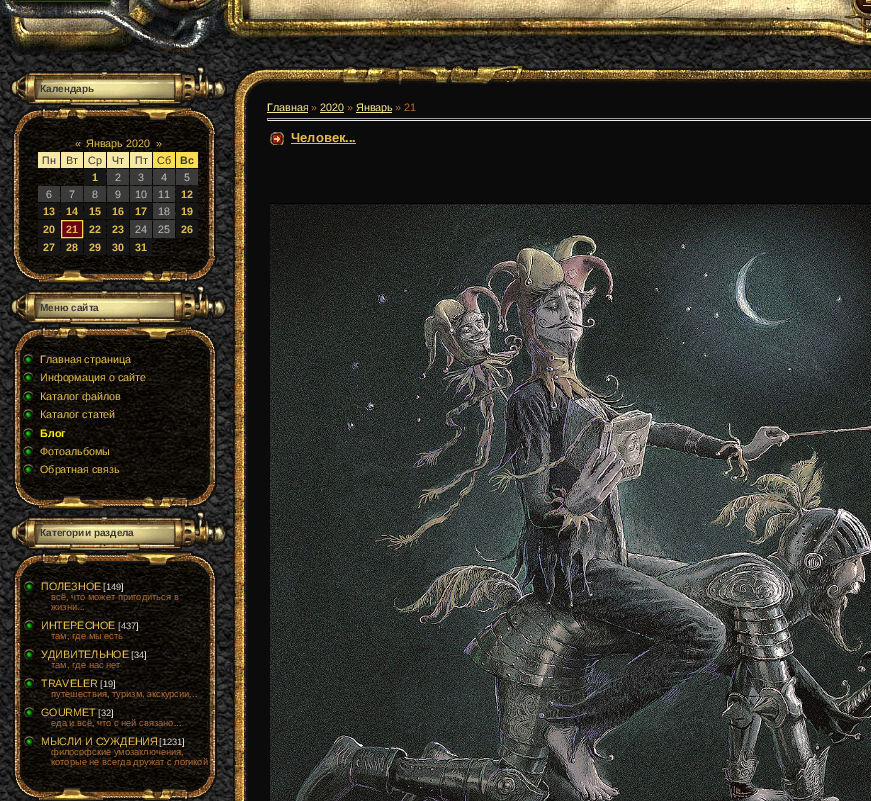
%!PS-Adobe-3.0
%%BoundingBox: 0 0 871 801
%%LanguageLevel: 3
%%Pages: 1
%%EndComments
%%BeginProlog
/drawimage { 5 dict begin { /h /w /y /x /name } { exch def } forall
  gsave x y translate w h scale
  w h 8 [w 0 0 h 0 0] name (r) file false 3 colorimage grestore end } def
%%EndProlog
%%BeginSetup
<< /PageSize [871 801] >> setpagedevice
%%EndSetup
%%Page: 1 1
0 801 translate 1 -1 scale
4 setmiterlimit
1 setgray
0 0 871 801 rectfill
(images/1.raw) 0 55 871 746 drawimage
(images/2.raw) 0 0 243 16 drawimage
(images/3.raw) 243 0 584 16 drawimage
(images/4.raw) 827 0 44 16 drawimage
(images/5.raw) 0 16 243 39 drawimage
(images/6.raw) 243 16 584 39 drawimage
(images/7.raw) 827 16 44 39 drawimage
(images/8.raw) 10 65 217 41 drawimage
(images/9.raw) 13 106 204 28 drawimage
(images/10.raw) 12 134 204 122 drawimage
0.973 0.91 0.647 setrgbcolor
38 152 22 16 rectfill
61 152 22 16 rectfill
84 152 22 16 rectfill
107 152 22 16 rectfill
130 152 22 16 rectfill
1 0.867 0.314 setrgbcolor
153 152 22 16 rectfill
176 152 22 16 rectfill
0.09 setgray
84 169 22 16 rectfill
0.231 setgray
107 169 22 16 rectfill
130 169 22 16 rectfill
153 169 22 16 rectfill
176 169 22 16 rectfill
38 186 22 16 rectfill
61 186 22 16 rectfill
84 186 22 16 rectfill
107 186 22 16 rectfill
130 186 22 16 rectfill
153 186 22 16 rectfill
0.09 setgray
176 186 22 16 rectfill
38 203 22 16 rectfill
61 203 22 16 rectfill
84 203 22 16 rectfill
107 203 22 16 rectfill
130 203 22 16 rectfill
0.231 setgray
153 203 22 16 rectfill
0.09 setgray
176 203 22 16 rectfill
38 220 22 18 rectfill
0.427 0.004 0.078 setrgbcolor
newpath 61.5 220.5 moveto 82.5 220.5 lineto 82.5 237.5 lineto 61.5 237.5 lineto closepath gsave fill grestore
1 0.867 0.314 setrgbcolor
stroke
0.09 setgray
84 220 22 18 rectfill
107 220 22 18 rectfill
0.231 setgray
130 220 22 18 rectfill
153 220 22 18 rectfill
0.09 setgray
176 220 22 18 rectfill
38 239 22 16 rectfill
61 239 22 16 rectfill
84 239 22 16 rectfill
107 239 22 16 rectfill
130 239 22 16 rectfill
(images/11.raw) 13 256 204 28 drawimage
(images/12.raw) 10 284 217 41 drawimage
(images/13.raw) 13 325 204 28 drawimage
(images/14.raw) 13 353 204 129 drawimage
(images/15.raw) 23 354 10 10 drawimage
(images/15.raw) 23 372 10 10 drawimage
(images/15.raw) 23 391 10 10 drawimage
(images/15.raw) 23 409 10 10 drawimage
(images/15.raw) 23 428 10 10 drawimage
(images/15.raw) 23 446 10 10 drawimage
(images/15.raw) 23 464 10 10 drawimage
(images/16.raw) 13 482 204 28 drawimage
(images/17.raw) 10 510 217 41 drawimage
(images/18.raw) 13 551 204 28 drawimage
(images/19.raw) 13 579 204 195 drawimage
(images/15.raw) 24 581 10 10 drawimage
(images/15.raw) 24 620 10 10 drawimage
(images/15.raw) 24 649 10 10 drawimage
(images/15.raw) 24 678 10 10 drawimage
(images/15.raw) 24 707 10 10 drawimage
(images/15.raw) 24 736 10 10 drawimage
(images/20.raw) 13 774 204 27 drawimage
(images/21.raw) 232 67 35 34 drawimage
(images/22.raw) 267 68 604 33 drawimage
(images/23.raw) 267 65 277 20 drawimage
(images/24.raw) 233 101 34 700 drawimage
0.043 setgray
267 101 604 700 rectfill
0.992 0.91 0.553 setrgbcolor
267 112 41 1 rectfill
320 112 24 1 rectfill
356 112 36 1 rectfill
0.624 setgray
267 118 604 1 rectfill
0.933 setgray
267 120 604 1 rectfill
0.624 setgray
267 118 1 3 rectfill
(images/25.raw) 270 132 14 13 drawimage
0.886 0.737 0.314 setrgbcolor
291 143 65 1 rectfill
(images/26.raw) 270 203 601 598 drawimage
/LiberationSans-Bold [10 0 0 -10 0 0] selectfont
0.212 setgray
40 92 moveto (Календарь) show
/LiberationSans-Regular [10.75 0 0 -10.75 0 0] selectfont
0.886 0.737 0.314 setrgbcolor
75 147 moveto («) show
86 147 moveto (Январь 2020) show
156 147 moveto (») show
0.212 setgray
42 164 moveto (Пн) show
66 164 moveto (Вт) show
88 164 moveto (Ср) show
112 164 moveto (Чт) show
135 164 moveto (Пт) show
157 164 moveto (Сб) show
/LiberationSans-Bold [10.75 0 0 -10.75 0 0] selectfont
180 164 moveto (Вс) show
0.886 0.737 0.314 setrgbcolor
92 181 moveto (1) show
/LiberationSans-Regular [10.75 0 0 -10.75 0 0] selectfont
0.745 0.749 0.729 setrgbcolor
115 181 moveto (2) show
138 181 moveto (3) show
161 181 moveto (4) show
184 181 moveto (5) show
46 198 moveto (6) show
69 198 moveto (7) show
92 198 moveto (8) show
115 198 moveto (9) show
135 198 moveto (10) show
158 198 moveto (11) show
/LiberationSans-Bold [10.75 0 0 -10.75 0 0] selectfont
0.886 0.737 0.314 setrgbcolor
181 198 moveto (12) show
43 215 moveto (13) show
66 215 moveto (14) show
89 215 moveto (15) show
112 215 moveto (16) show
135 215 moveto (17) show
/LiberationSans-Regular [10.75 0 0 -10.75 0 0] selectfont
0.745 0.749 0.729 setrgbcolor
158 215 moveto (18) show
/LiberationSans-Bold [10.75 0 0 -10.75 0 0] selectfont
0.886 0.737 0.314 setrgbcolor
181 215 moveto (19) show
43 233 moveto (20) show
66 233 moveto (21) show
89 233 moveto (22) show
112 233 moveto (23) show
/LiberationSans-Regular [10.75 0 0 -10.75 0 0] selectfont
0.745 0.749 0.729 setrgbcolor
135 233 moveto (24) show
158 233 moveto (25) show
/LiberationSans-Bold [10.75 0 0 -10.75 0 0] selectfont
0.886 0.737 0.314 setrgbcolor
181 233 moveto (26) show
43 251 moveto (27) show
66 251 moveto (28) show
89 251 moveto (29) show
112 251 moveto (30) show
135 251 moveto (31) show
/LiberationSans-Bold [10 0 0 -10 0 0] selectfont
0.212 setgray
40 311 moveto (Меню сайта) show
/LiberationSans-Regular [10.75 0 0 -10.75 0 0] selectfont
0.886 0.737 0.314 setrgbcolor
40 363 moveto (Главная страница) show
40 381 moveto (Информация о сайте) show
40 400 moveto (Каталог файлов) show
40 418 moveto (Каталог статей) show
/LiberationSans-Bold [10.75 0 0 -10.75 0 0] selectfont
1 0.949 0 setrgbcolor
40 437 moveto (Блог) show
/LiberationSans-Regular [10.75 0 0 -10.75 0 0] selectfont
0.886 0.737 0.314 setrgbcolor
40 455 moveto (Фотоальбомы) show
40 473 moveto (Обратная связь) show
/LiberationSans-Bold [10 0 0 -10 0 0] selectfont
0.212 setgray
40 536 moveto (Категории раздела) show
/LiberationSans-Regular [10.75 0 0 -10.75 0 0] selectfont
0.886 0.737 0.314 setrgbcolor
41 590 moveto (ПОЛЕЗНОЕ) show
/LiberationSans-Regular [9.3 0 0 -9.3 0 0] selectfont
0.847 0.835 0.835 setrgbcolor
103 590 moveto ([149]) show
0.718 0.431 0.196 setrgbcolor
51 600 moveto (всё, что может пригодиться в) show
51 610 moveto (жизни...) show
/LiberationSans-Regular [10.75 0 0 -10.75 0 0] selectfont
0.886 0.737 0.314 setrgbcolor
41 629 moveto (ИНТЕРЕСНОЕ) show
/LiberationSans-Regular [9.3 0 0 -9.3 0 0] selectfont
0.847 0.835 0.835 setrgbcolor
118 629 moveto ([437]) show
0.718 0.431 0.196 setrgbcolor
51 639 moveto (там, где мы есть) show
/LiberationSans-Regular [10.75 0 0 -10.75 0 0] selectfont
0.886 0.737 0.314 setrgbcolor
41 658 moveto (УДИВИТЕЛЬНОЕ) show
/LiberationSans-Regular [9.3 0 0 -9.3 0 0] selectfont
0.847 0.835 0.835 setrgbcolor
131 658 moveto ([34]) show
0.718 0.431 0.196 setrgbcolor
51 668 moveto (там, где нас нет) show
/LiberationSans-Regular [10.75 0 0 -10.75 0 0] selectfont
0.886 0.737 0.314 setrgbcolor
41 687 moveto (TRAVELER) show
/LiberationSans-Regular [9.3 0 0 -9.3 0 0] selectfont
0.847 0.835 0.835 setrgbcolor
100 687 moveto ([19]) show
0.718 0.431 0.196 setrgbcolor
51 697 moveto (путешествия, туризм, экскурсии...) show
/LiberationSans-Regular [10.75 0 0 -10.75 0 0] selectfont
0.886 0.737 0.314 setrgbcolor
41 716 moveto (GOURMET) show
/LiberationSans-Regular [9.3 0 0 -9.3 0 0] selectfont
0.847 0.835 0.835 setrgbcolor
98 716 moveto ([32]) show
0.718 0.431 0.196 setrgbcolor
51 726 moveto (еда и всё, что с ней связано...) show
/LiberationSans-Regular [10.75 0 0 -10.75 0 0] selectfont
0.886 0.737 0.314 setrgbcolor
41 745 moveto (МЫСЛИ И СУЖДЕНИЯ) show
/LiberationSans-Regular [9.3 0 0 -9.3 0 0] selectfont
0.847 0.835 0.835 setrgbcolor
159 745 moveto ([1231]) show
0.718 0.431 0.196 setrgbcolor
51 755 moveto (философские умозаключения,) show
51 765 moveto (которые не всегда дружат с логикой) show
/LiberationSans-Regular [10.75 0 0 -10.75 0 0] selectfont
0.992 0.91 0.553 setrgbcolor
267 111 moveto (Главная) show
0.718 0.431 0.196 setrgbcolor
311 111 moveto (») show
0.992 0.91 0.553 setrgbcolor
320 111 moveto (2020) show
0.718 0.431 0.196 setrgbcolor
347 111 moveto (») show
0.992 0.91 0.553 setrgbcolor
356 111 moveto (Январь) show
0.718 0.431 0.196 setrgbcolor
395 111 moveto (» 21) show
/LiberationSans-Bold [13 0 0 -13 0 0] selectfont
0.886 0.737 0.314 setrgbcolor
291 142 moveto (Человек...) show
showpage
%%EOF
